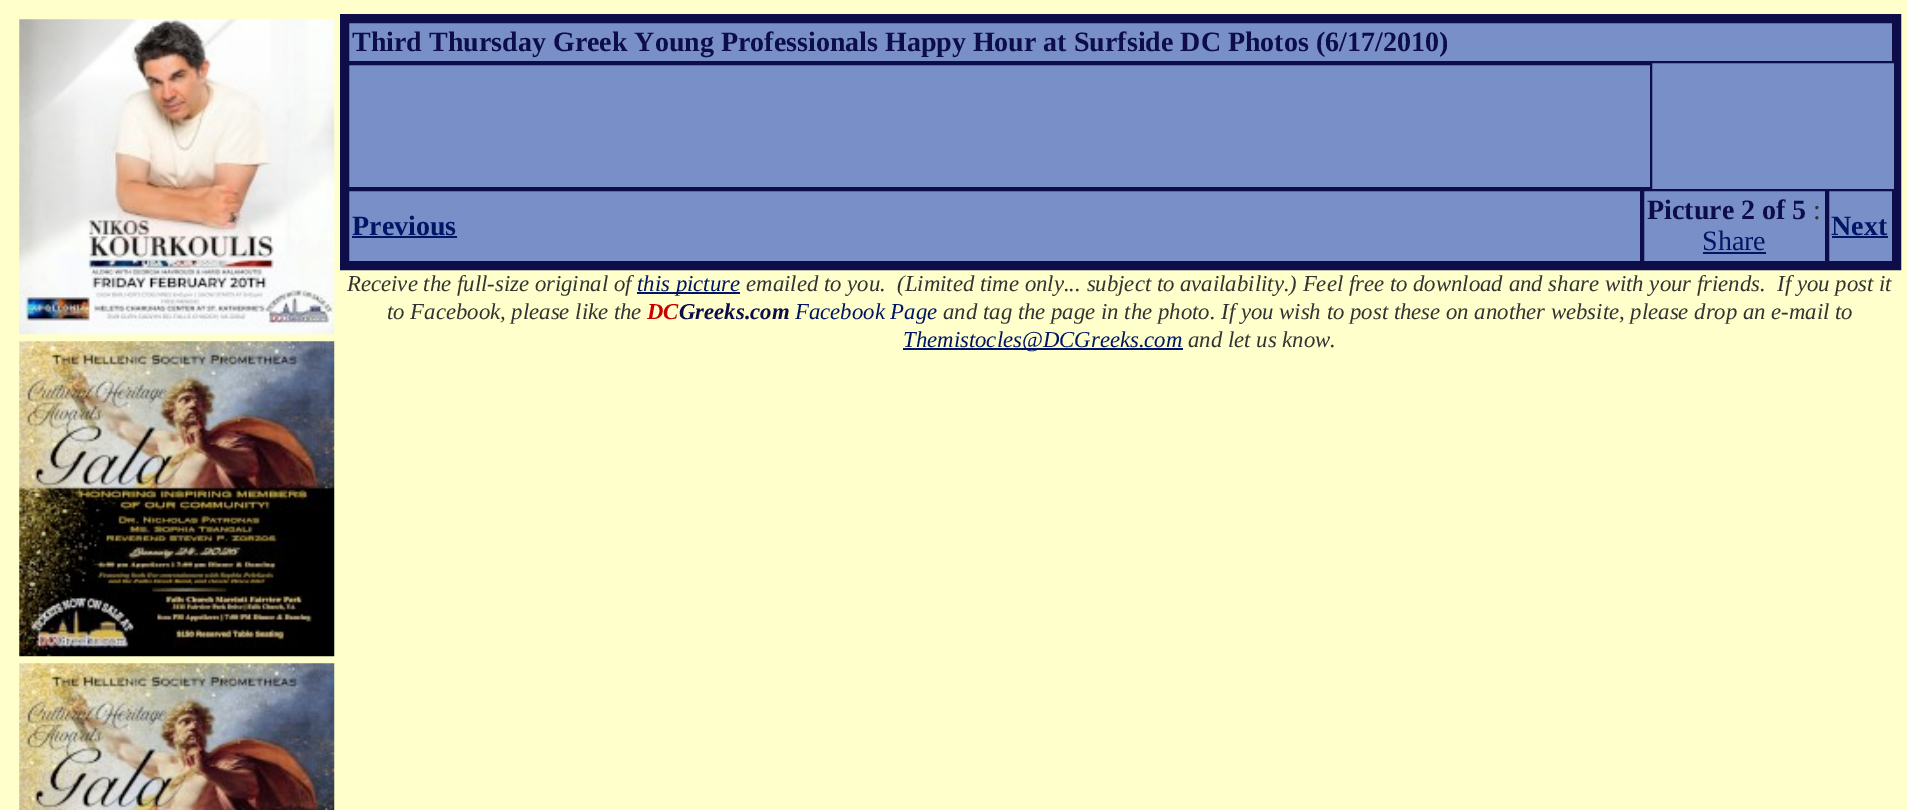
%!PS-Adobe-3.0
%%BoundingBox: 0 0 1907 810
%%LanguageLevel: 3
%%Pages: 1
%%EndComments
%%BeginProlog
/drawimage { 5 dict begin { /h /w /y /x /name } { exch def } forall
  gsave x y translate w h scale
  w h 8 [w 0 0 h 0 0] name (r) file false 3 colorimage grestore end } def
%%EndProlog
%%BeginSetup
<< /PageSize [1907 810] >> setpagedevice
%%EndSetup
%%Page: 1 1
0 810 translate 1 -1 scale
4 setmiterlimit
1 1 0.8 setrgbcolor
0 0 1907 810 rectfill
(images/1.raw) 19 19 316 316 drawimage
(images/2.raw) 19 341 316 316 drawimage
(images/3.raw) 19 663 316 147 drawimage
0.475 0.561 0.784 setrgbcolor
349 23 1545 238 rectfill
0.051 0.051 0.29 setrgbcolor
7 setlinewidth
343.5 17.5 1554 249 rectstroke
2 setlinewidth
348 22 1545 40 rectstroke
348 64 1303 124 rectstroke
348 190 1293 72 rectstroke
0 0.086 0.392 setrgbcolor
352 236 105 2 rectfill
0.051 0.051 0.29 setrgbcolor
1643 190 183 72 rectstroke
0 0.086 0.392 setrgbcolor
1703 252 63 2 rectfill
0.051 0.051 0.29 setrgbcolor
1828 190 65 72 rectstroke
0 0.086 0.392 setrgbcolor
1832 236 56 2 rectfill
637 292 103 2 rectfill
903 348 280 2 rectfill
/LiberationSerif-Bold [28 0 0 -28 0 0] selectfont
0.051 0.051 0.29 setrgbcolor
352 51 moveto (Third Thursday Greek Young Professionals Happy Hour at Surfside DC Photos \(6/17/2010\)) show
0 0.086 0.392 setrgbcolor
352 235 moveto (Previous) show
0.051 0.051 0.29 setrgbcolor
1647 219 moveto (Picture 2 of 5) show
/LiberationSerif-Regular [28 0 0 -28 0 0] selectfont
0.2 setgray
1813 219 moveto (:) show
0 0.086 0.392 setrgbcolor
1702 250 moveto (Share) show
/LiberationSerif-Bold [28 0 0 -28 0 0] selectfont
1831 235 moveto (Next) show
/LiberationSerif-Italic [22.75 0 0 -22.75 0 0] selectfont
0.2 setgray
347 291 moveto (Receive the full-size original of) show
0 0.086 0.392 setrgbcolor
637 291 moveto (this picture) show
0.2 setgray
746 291 moveto (emailed to you.  \(Limited time only... subject to availability.\) Feel free to download and share with your friends.  If you post it) show
387 319 moveto (to Facebook, please like the) show
/LiberationSerif-BoldItalic [22.75 0 0 -22.75 0 0] selectfont
0.784 0 0 setrgbcolor
647 319 moveto (DC) show
0.051 0.051 0.29 setrgbcolor
679 319 moveto (Greeks.com) show
/LiberationSerif-Italic [22.75 0 0 -22.75 0 0] selectfont
0 0.086 0.392 setrgbcolor
795 319 moveto (Facebook Page) show
0.2 setgray
943 319 moveto (and tag the page in the photo. If you wish to post these on another website, please drop an e-mail to) show
0 0.086 0.392 setrgbcolor
903 347 moveto (Themistocles@DCGreeks.com) show
0.2 setgray
1188 347 moveto (and let us know.) show
showpage
%%EOF
